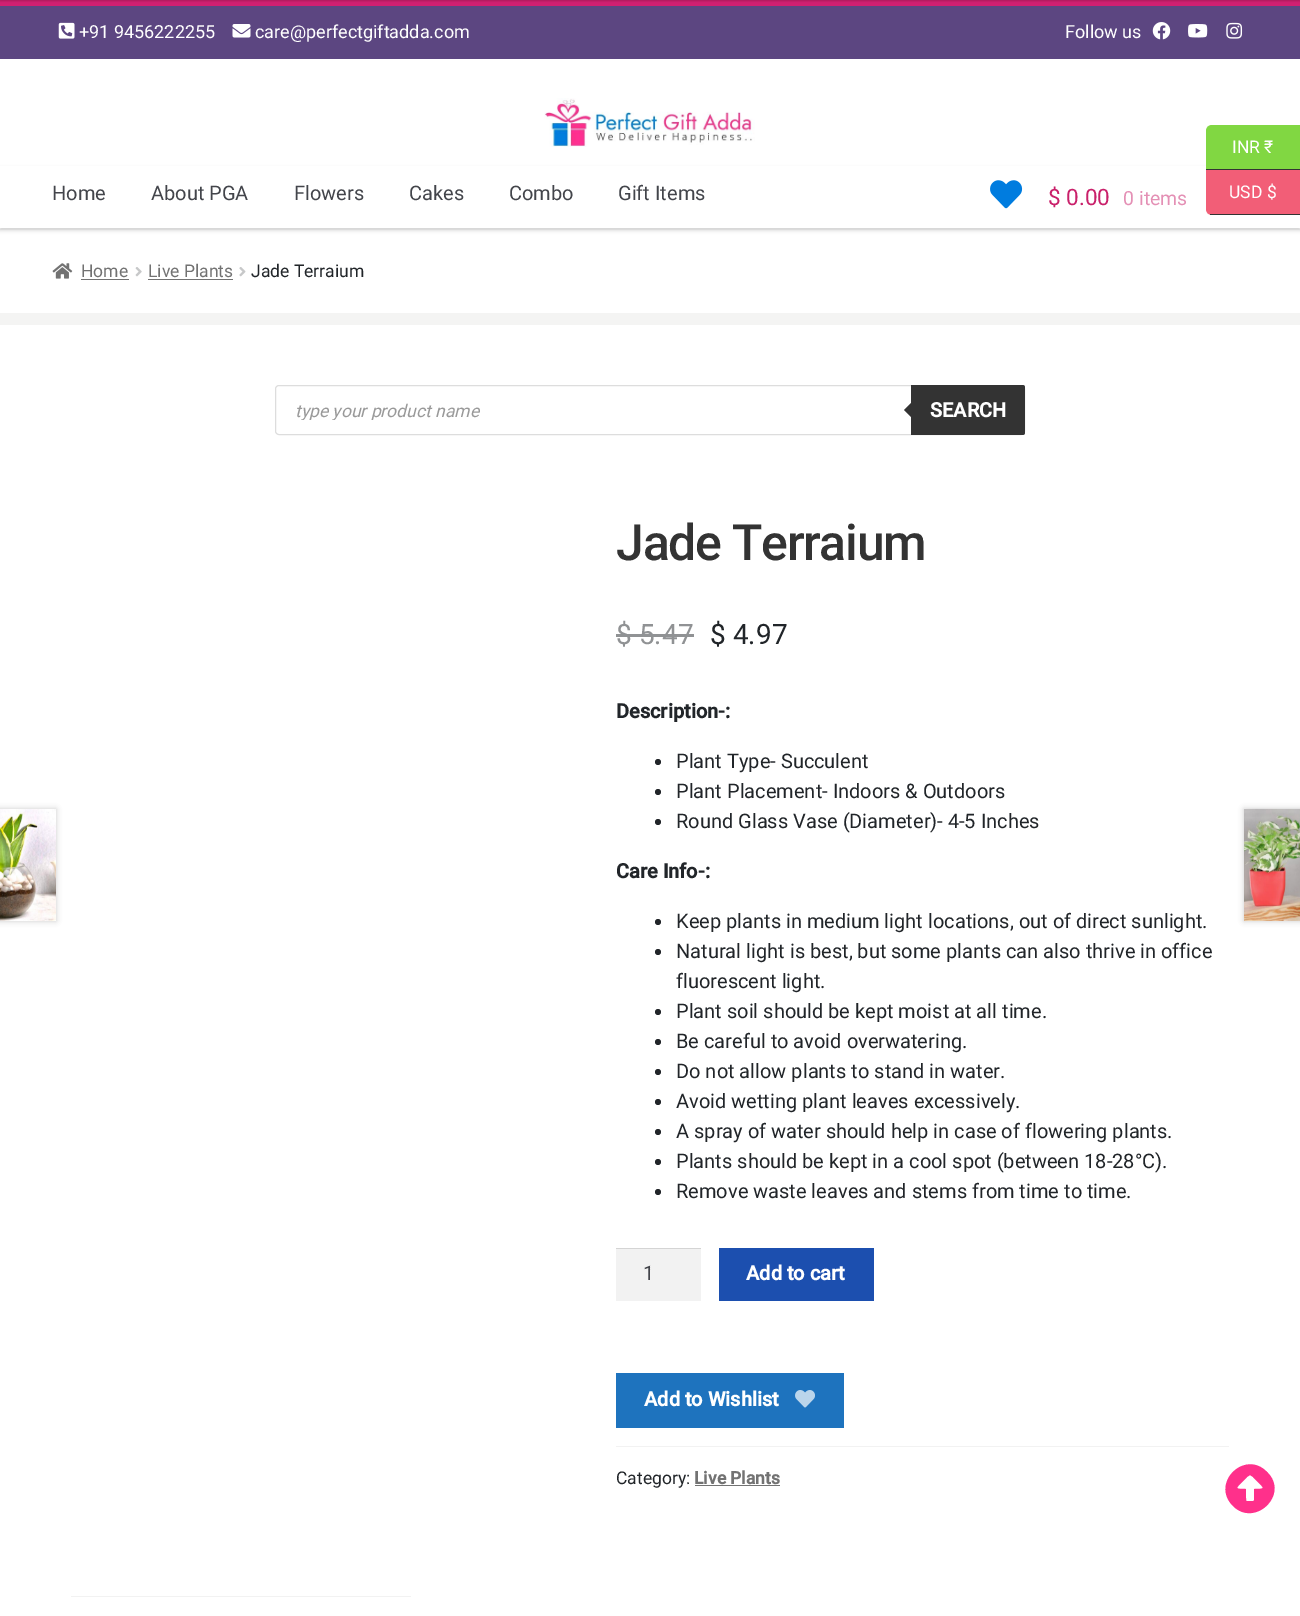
%!PS-Adobe-3.0
%%BoundingBox: 0 0 1300 1616
%%LanguageLevel: 3
%%Pages: 1
%%EndComments
%%BeginProlog
/setalpha { dup .setfillconstantalpha .setstrokeconstantalpha } def
/rrect { 5 dict begin { /r /h /w /y /x } { exch def } forall
  x r add y moveto x w add y 2 copy h add r arct x w add y h add x 1 index r arct
  x y h add x y r arct x y 2 copy exch w add exch r arct closepath end } def
/softshadow { 12 dict begin { /a /b /q /h /w /y /x } { exch def } forall gsave /was 0 def
  9 -2 -9 { dup b mul 4 div /e exch def 1 sub .425 mul 2.718 exch exp 1 add a .99 .min exch div /now exch def
    1 1 now sub 1 was sub div sub setalpha /was now def
    w h .min e 2 mul add 0 gt { x e sub y e sub w e 2 mul add h e 2 mul add
      q e add b .6 mul add w h .min 2 div e add .min 0 .max rrect fill } if } for grestore end } def
/drawimage { 5 dict begin { /h /w /y /x /name } { exch def } forall
  gsave x y translate w h scale
  w h 8 [w 0 0 h 0 0] name (r) file false 3 colorimage grestore end } def
%%EndProlog
%%BeginSetup
<< /PageSize [1300 1616] /PageUsesTransparency true >> setpagedevice
%%EndSetup
%%Page: 1 1
0 .pushpdf14devicefilter
0 1616 translate 1 -1 scale
4 setmiterlimit
1 setgray
0 0 1300 1616 rectfill
0.82 0.125 0.443 setrgbcolor
0 0 1300 6 rectfill
0 setgray
0 -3 1300 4 0 1 0.2 softshadow
0.361 0.275 0.506 setrgbcolor
0 6 1300 53 rectfill
(images/1.raw) 58 22 17 17 drawimage
(images/2.raw) 232 24 19 14 drawimage
(images/3.raw) 1152 22 19 18 drawimage
(images/4.raw) 1188 24 20 14 drawimage
(images/5.raw) 1226 22 17 17 drawimage
0.941 setgray
0 229 1300 1 rectfill
(images/6.raw) 544 98 211 49 drawimage
gsave
newpath 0 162 moveto 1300 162 lineto 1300 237 lineto 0 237 lineto closepath 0 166 moveto 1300 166 lineto 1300 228 lineto 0 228 lineto closepath eoclip newpath
0.8 setgray
0 169 1300 61 0 2 1 softshadow
grestore
(images/7.raw) 990 180 33 29 drawimage
(images/8.raw) 52 263 21 16 drawimage
0.447 setgray
81 279 48 1 rectfill
(images/9.raw) 135 267 7 10 drawimage
148 279 85 1 rectfill
(images/10.raw) 239 267 7 10 drawimage
0.957 0.957 0.953 setrgbcolor
0 313 1300 12 rectfill
0.867 setgray
275.5 385.5 749 49 3.5 rrect stroke
0.2 setgray
newpath 911 385 moveto 1022.5 385 lineto 1024 385 1025 386 1025 387.5 curveto 1025 432.5 lineto 1025 434 1024 435 1022.5 435 curveto 911 435 lineto closepath fill
newpath 914 400 moveto 914 420 lineto 904 410 lineto closepath fill
0.565 0.573 0.58 setrgbcolor
616 634 78 3 rectfill
0.129 0.145 0.161 setrgbcolor
newpath 658 762 3 0 360 arc closepath fill
newpath 658 792 3 0 360 arc closepath fill
newpath 658 822 3 0 360 arc closepath fill
newpath 658 922 3 0 360 arc closepath fill
newpath 658 952 3 0 360 arc closepath fill
newpath 658 1012 3 0 360 arc closepath fill
newpath 658 1042 3 0 360 arc closepath fill
newpath 658 1072 3 0 360 arc closepath fill
newpath 658 1102 3 0 360 arc closepath fill
newpath 658 1132 3 0 360 arc closepath fill
newpath 658 1162 3 0 360 arc closepath fill
newpath 658 1192 3 0 360 arc closepath fill
0.949 setgray
616 1249 85 52 rectfill
0.831 setgray
616 1248 85 1 rectfill
0.11 0.31 0.686 setrgbcolor
719 1248 155 53 rectfill
0.118 0.451 0.745 setrgbcolor
616 1373 228 55 rectfill
(images/11.raw) 795 1390 20 18 drawimage
0.949 setgray
616 1446 613 1 rectfill
0.447 setgray
695 1485 85 1 rectfill
0 setgray
-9 809 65 112 0 3 0.2 softshadow
(images/12.raw) 0 809 56 112 drawimage
1244 809 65 112 0 3 0.2 softshadow
(images/13.raw) 1244 808 56 113 drawimage
0.949 setgray
71 1596 340 1 rectfill
0.506 0.843 0.259 setrgbcolor
newpath 1212 125 moveto 1300 125 lineto 1300 170 lineto 1206 170 lineto 1206 131 lineto 1206 127.5 1208.5 125 1212 125 curveto closepath fill
0.2 setgray
1206 169 94 1 rectfill
0.949 0.369 0.467 setrgbcolor
newpath 1206 170 moveto 1300 170 lineto 1300 215 lineto 1212 215 lineto 1208.5 215 1206 212.5 1206 209 curveto closepath fill
0.2 setgray
1210 214 90 1 rectfill
1 0.188 0.545 setrgbcolor
newpath 1233 1506 moveto 1210 1483 1245 1449 1267 1472 curveto 1290 1494 1255 1528 1233 1506 curveto closepath 1254 1500 moveto 1254 1489 lineto 1268 1489 1263 1488 1253 1477 curveto 1250 1475 lineto 1247 1477 lineto 1237 1488 1232 1489 1246 1489 curveto 1246 1498 lineto 1246 1502 1246 1501 1250 1501 curveto 1251 1501 1254 1502 1254 1500 curveto closepath fill
/Roboto-Regular [18 0 0 -18 0 0] selectfont
1 setgray
79 38 moveto (+91 9456222255) show
255 38 moveto (care@perfectgiftadda.com) show
1065 38 moveto (Follow us) show
/Roboto-Regular [20 0 0 -20 0 0] selectfont
0.263 0.271 0.294 setrgbcolor
52 200 moveto (Home) show
151 200 moveto (About PGA) show
294 200 moveto (Flowers) show
409 200 moveto (Cakes) show
509 200 moveto (Combo) show
618 200 moveto (Gift Items) show
/Roboto-Regular [22.5 0 0 -22.5 0 0] selectfont
0.788 0.125 0.416 setrgbcolor
1048 205 moveto ($ 0.00) show
/Roboto-Regular [19.5 0 0 -19.5 0 0] selectfont
0.894 0.565 0.71 setrgbcolor
1123 205 moveto (0 items) show
/Roboto-Regular [17.5 0 0 -17.5 0 0] selectfont
0.447 setgray
81 277 moveto (Home) show
148 277 moveto (Live Plants) show
0.129 0.145 0.161 setrgbcolor
251 277 moveto (Jade Terraium) show
gsave
295 400 710 20 rectclip
/Roboto-Italic [17.5 0 0 -17.5 0 0] selectfont
0.6 setgray
295 417 moveto (type your product name) show
grestore
/Roboto-Bold [20 0 0 -20 0 0] selectfont
1 setgray
930 417 moveto (SEARCH) show
/Roboto-Medium [50 0 0 -50 0 0] selectfont
0.2 setgray
616 560 moveto -1.25 0 (Jade Terraium) ashow
/Roboto-Regular [28 0 0 -28 0 0] selectfont
0.565 0.573 0.58 setrgbcolor
616 644 moveto ($ 5.47) show
0.129 0.145 0.161 setrgbcolor
710 644 moveto ($ 4.97) show
/Roboto-Bold [20 0 0 -20 0 0] selectfont
616 718 moveto (Description-:) show
/Roboto-Regular [20 0 0 -20 0 0] selectfont
676 768 moveto (Plant Type- Succulent) show
676 798 moveto (Plant Placement- Indoors & Outdoors) show
676 828 moveto (Round Glass Vase \(Diameter\)- 4-5 Inches) show
/Roboto-Bold [20 0 0 -20 0 0] selectfont
616 878 moveto (Care Info-:) show
/Roboto-Regular [20 0 0 -20 0 0] selectfont
676 928 moveto (Keep plants in medium light locations, out of direct sunlight.) show
676 958 moveto (Natural light is best, but some plants can also thrive in office) show
676 988 moveto (fluorescent light.) show
676 1018 moveto (Plant soil should be kept moist at all time.) show
676 1048 moveto (Be careful to avoid overwatering.) show
676 1078 moveto (Do not allow plants to stand in water.) show
676 1108 moveto (Avoid wetting plant leaves excessively.) show
676 1138 moveto (A spray of water should help in case of flowering plants.) show
676 1168 moveto (Plants should be kept in a cool spot \(between 18-28°C\).) show
676 1198 moveto (Remove waste leaves and stems from time to time.) show
0.263 0.271 0.294 setrgbcolor
643 1280 moveto (1) show
/Roboto-Bold [20 0 0 -20 0 0] selectfont
1 setgray
746 1280 moveto (Add to cart) show
644 1406 moveto (Add to Wishlist) show
/Roboto-Regular [17.5 0 0 -17.5 0 0] selectfont
0.129 0.145 0.161 setrgbcolor
616 1484 moveto (Category:) show
/Roboto-Bold [17.5 0 0 -17.5 0 0] selectfont
0.447 setgray
694 1484 moveto (Live Plants) show
/Roboto-Regular [17.5 0 0 -17.5 0 0] selectfont
1 setgray
1232 153 moveto (INR ₹) show
1229 198 moveto (USD $) show
.poppdf14devicefilter showpage
%%EOF
